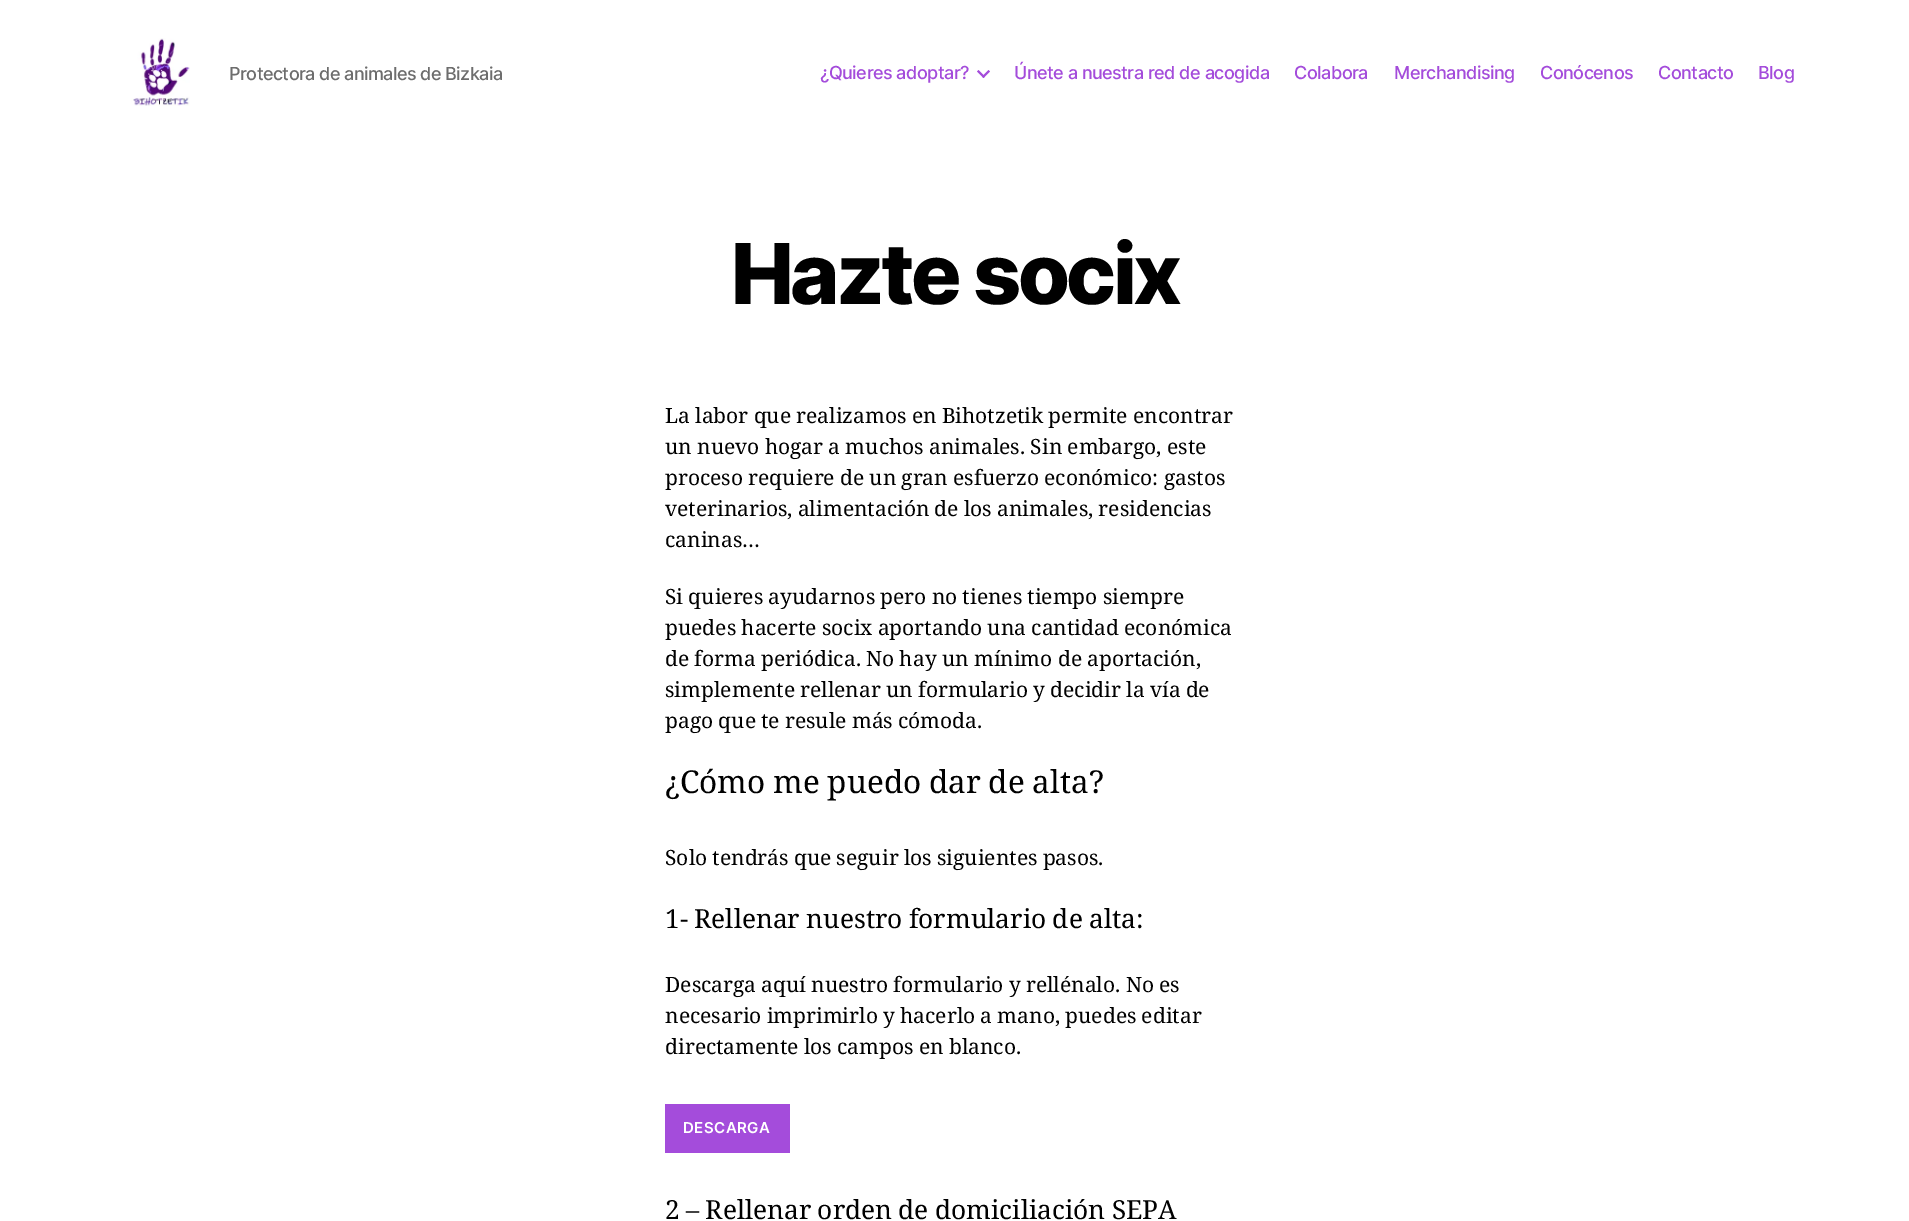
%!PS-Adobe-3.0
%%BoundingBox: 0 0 1909 1221
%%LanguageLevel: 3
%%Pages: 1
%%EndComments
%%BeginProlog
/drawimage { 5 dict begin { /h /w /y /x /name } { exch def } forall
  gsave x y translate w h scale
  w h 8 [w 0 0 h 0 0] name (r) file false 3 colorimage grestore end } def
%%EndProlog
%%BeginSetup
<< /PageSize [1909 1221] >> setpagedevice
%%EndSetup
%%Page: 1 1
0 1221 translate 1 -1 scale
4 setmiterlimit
1 setgray
0 0 1909 1221 rectfill
(images/1.raw) 131 38 59 68 drawimage
0.643 0.298 0.859 setrgbcolor
newpath 977 71.5 moveto 978.5 70 lineto 985 76.5 lineto 983.5 78 lineto closepath fill
newpath 982 76.5 moveto 988.5 70 lineto 990 71.5 lineto 983.5 78 lineto closepath fill
665 1104 125 49 rectfill
/Inter-Medium [18 0 0 -18 0 0] selectfont
0.427 setgray
229 80 moveto -0.55 0 (Protectora de animales de Bizkaia) ashow
0.643 0.298 0.859 setrgbcolor
820 79 moveto -0.5 0 (¿Quieres adoptar?) ashow
1014 79 moveto -0.5 0 (Únete a nuestra red de acogida) ashow
1294 79 moveto -0.5 0 (Colabora) ashow
1394 79 moveto -0.5 0 (Merchandising) ashow
1540 79 moveto -0.5 0 (Conócenos) ashow
1658 79 moveto -0.5 0 (Contacto) ashow
1758 79 moveto -0.5 0 (Blog) ashow
/Inter-ExtraBold [84 0 0 -84 0 0] selectfont
0 setgray
731 304 moveto -3.5 0 (Hazte socix) ashow
/NotoSerif-Regular [21 0 0 -21 0 0] selectfont
665 423 moveto -0.25 0 32 (La labor que realizamos en Bihotzetik permite encontrar) widthshow
665 454 moveto -0.25 0 32 (un nuevo hogar a muchos animales. Sin embargo, este) widthshow
665 485 moveto -0.25 0 32 (proceso requiere de un gran esfuerzo económico: gastos) widthshow
665 516 moveto -0.25 0 32 (veterinarios, alimentación de los animales, residencias) widthshow
665 547 moveto (caninas…) show
665 604 moveto -0.25 0 32 (Si quieres ayudarnos pero no tienes tiempo siempre) widthshow
665 635 moveto -0.25 0 32 (puedes hacerte socix aportando una cantidad económica) widthshow
665 666 moveto -0.25 0 32 (de forma periódica. No hay un mínimo de aportación,) widthshow
665 697 moveto -0.25 0 32 (simplemente rellenar un formulario y decidir la vía de) widthshow
665 728 moveto -0.25 0 32 (pago que te resule más cómoda.) widthshow
/NotoSerif-Regular [31.5 0 0 -31.5 0 0] selectfont
665 793 moveto -0.5 0 32 (¿Cómo me puedo dar de alta?) widthshow
/NotoSerif-Regular [21 0 0 -21 0 0] selectfont
665 865 moveto -0.25 0 32 (Solo tendrás que seguir los siguientes pasos.) widthshow
/NotoSerif-Regular [26.25 0 0 -26.25 0 0] selectfont
665 928 moveto -0.5 0 32 (1- Rellenar nuestro formulario de alta:) widthshow
/NotoSerif-Regular [21 0 0 -21 0 0] selectfont
665 992 moveto -0.25 0 32 (Descarga aquí nuestro formulario y rellénalo. No es) widthshow
665 1023 moveto -0.25 0 32 (necesario imprimirlo y hacerlo a mano, puedes editar) widthshow
665 1054 moveto -0.25 0 32 (directamente los campos en blanco.) widthshow
/Inter-SemiBold [15 0 0 -15 0 0] selectfont
1 setgray
683 1133 moveto 0.5 0 (DESCARGA) ashow
/NotoSerif-Regular [26.25 0 0 -26.25 0 0] selectfont
0 setgray
665 1219 moveto -0.5 0 32 (2 – Rellenar orden de domiciliación SEPA) widthshow
showpage
%%EOF
